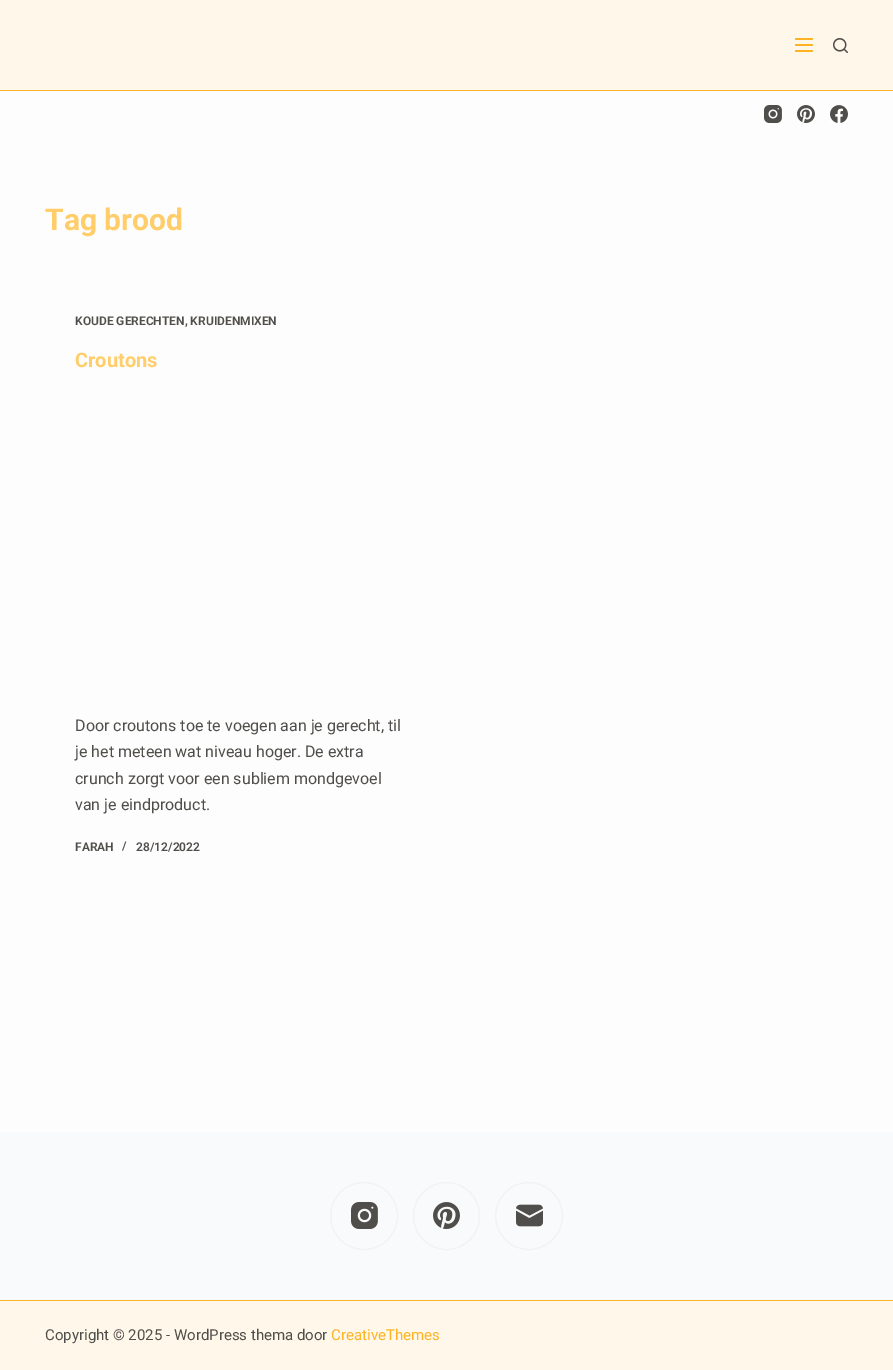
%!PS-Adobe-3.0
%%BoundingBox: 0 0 893 1370
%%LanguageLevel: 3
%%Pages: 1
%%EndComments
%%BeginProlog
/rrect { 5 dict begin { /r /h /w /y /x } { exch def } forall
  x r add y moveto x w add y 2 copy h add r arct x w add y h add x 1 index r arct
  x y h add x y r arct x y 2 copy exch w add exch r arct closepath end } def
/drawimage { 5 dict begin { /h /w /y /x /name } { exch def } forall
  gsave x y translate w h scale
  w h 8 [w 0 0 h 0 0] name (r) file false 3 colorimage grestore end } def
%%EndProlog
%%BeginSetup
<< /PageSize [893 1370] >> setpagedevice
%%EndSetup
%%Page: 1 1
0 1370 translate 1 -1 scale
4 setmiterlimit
0.992 setgray
0 0 893 1370 rectfill
1 0.973 0.918 setrgbcolor
0 0 893 90 rectfill
0.988 0.706 0.141 setrgbcolor
0 90 893 1 rectfill
795 38 18 2 1 rrect fill
795 44 18 2 1 rrect fill
795 50 18 2 1 rrect fill
(images/1.raw) 833 38 15 15 drawimage
(images/2.raw) 764 105 18 18 drawimage
(images/3.raw) 797 105 18 18 drawimage
(images/4.raw) 830 105 18 18 drawimage
0.976 0.98 0.984 setrgbcolor
0 1132 893 168 rectfill
0.941 0.949 0.957 setrgbcolor
newpath 364 1216 33.5 0 360 arc closepath stroke
(images/5.raw) 351 1202 27 27 drawimage
413.5 1182.5 66 67 33 rrect stroke
(images/6.raw) 433 1202 27 27 drawimage
newpath 529 1216 33.5 0 360 arc closepath stroke
(images/7.raw) 516 1204 27 23 drawimage
1 0.973 0.918 setrgbcolor
0 1301 893 69 rectfill
0.988 0.706 0.141 setrgbcolor
0 1300 893 1 rectfill
/Roboto-Bold [30 0 0 -30 0 0] selectfont
1 0.804 0.412 setrgbcolor
45 230 moveto (Tag brood) show
/Roboto-SemiBold [12 0 0 -12 0 0] selectfont
0.314 0.306 0.29 setrgbcolor
75 325 moveto (KOUDE GERECHTEN, KRUIDENMIXEN) show
/Roboto-Bold [20 0 0 -20 0 0] selectfont
1 0.804 0.412 setrgbcolor
75 367 moveto (Croutons) show
/Roboto-Regular [16 0 0 -16 0 0] selectfont
0.314 0.306 0.29 setrgbcolor
75 731 moveto (Door croutons toe te voegen aan je gerecht, til) show
75 757 moveto (je het meteen wat niveau hoger. De extra) show
75 784 moveto (crunch zorgt voor een subliem mondgevoel) show
75 810 moveto (van je eindproduct.) show
/Roboto-SemiBold [12 0 0 -12 0 0] selectfont
75 851 moveto (FARAH) show
122 850 moveto (/) show
136 851 moveto (28/12/2022) show
/Roboto-Regular [15 0 0 -15 0 0] selectfont
45 1340 moveto (Copyright © 2025 - WordPress thema door) show
0.988 0.706 0.141 setrgbcolor
331 1340 moveto (CreativeThemes) show
showpage
%%EOF
